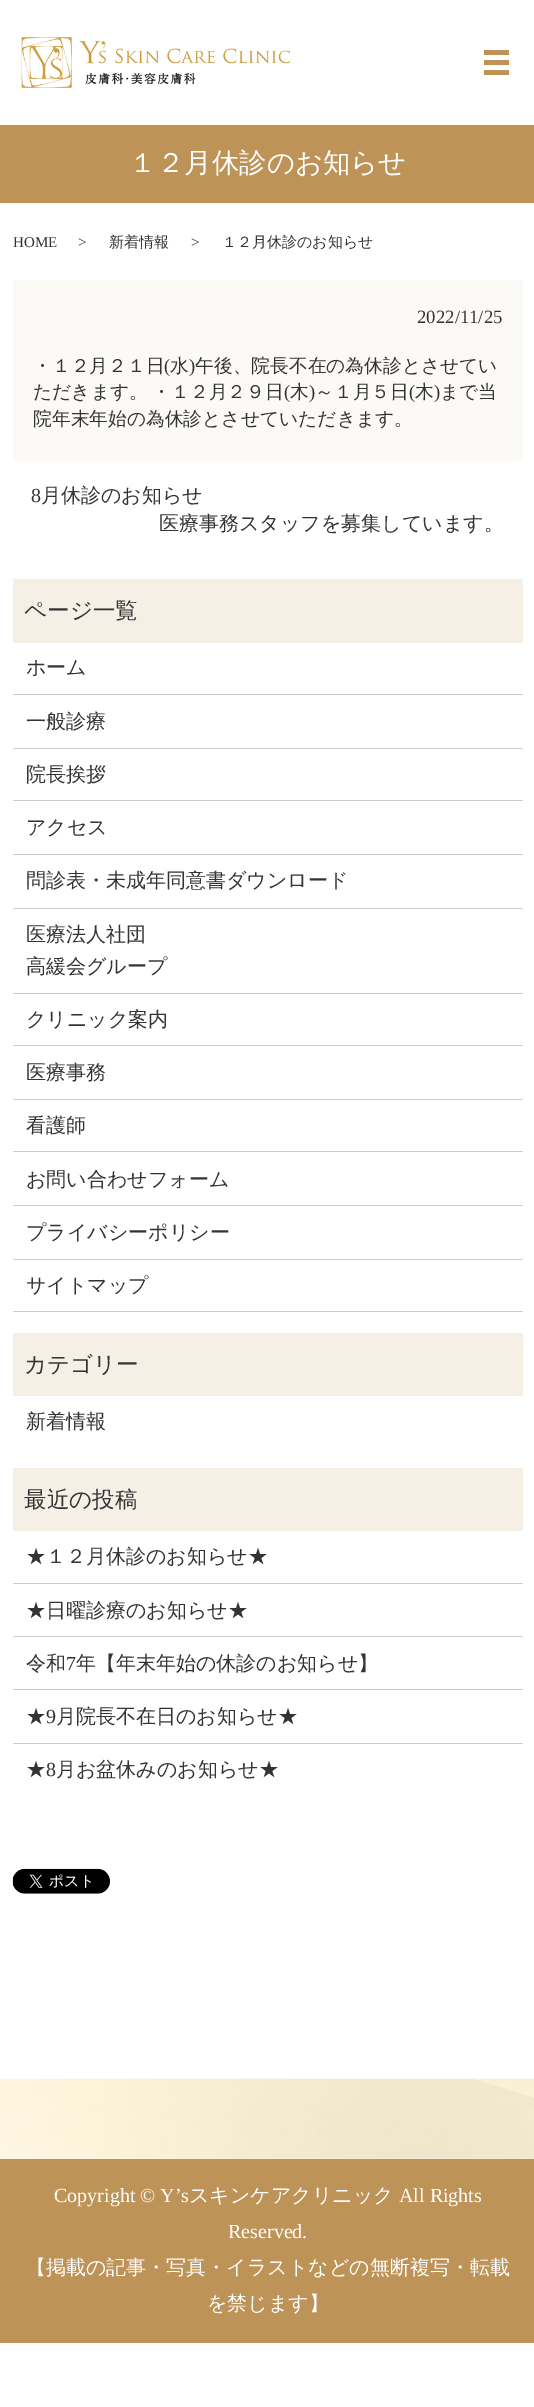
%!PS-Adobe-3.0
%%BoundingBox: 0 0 534 2407
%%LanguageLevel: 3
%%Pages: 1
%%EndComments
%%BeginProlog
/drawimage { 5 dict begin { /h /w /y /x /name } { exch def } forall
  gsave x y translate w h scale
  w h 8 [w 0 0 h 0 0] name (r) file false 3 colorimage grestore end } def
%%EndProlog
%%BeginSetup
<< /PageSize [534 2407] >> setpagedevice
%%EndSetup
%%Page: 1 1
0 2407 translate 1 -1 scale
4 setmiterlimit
1 setgray
0 0 534 2407 rectfill
(images/1.raw) 21 37 269 51 drawimage
0.741 0.576 0.345 setrgbcolor
484 50 25 5 rectfill
484 60 25 5 rectfill
484 70 25 5 rectfill
0 125 534 78 rectfill
0.988 0.98 0.969 setrgbcolor
13 280 510 181 rectfill
0.961 0.937 0.902 setrgbcolor
13 579 510 64 rectfill
0.8 setgray
13 694 510 1 rectfill
13 748 510 1 rectfill
13 800 510 1 rectfill
13 854 510 1 rectfill
13 908 510 1 rectfill
13 993 510 1 rectfill
13 1045 510 1 rectfill
13 1099 510 1 rectfill
13 1151 510 1 rectfill
13 1205 510 1 rectfill
13 1259 510 1 rectfill
13 1311 510 1 rectfill
0.961 0.937 0.902 setrgbcolor
13 1333 510 63 rectfill
13 1468 510 63 rectfill
0.8 setgray
13 1583 510 1 rectfill
13 1636 510 1 rectfill
13 1689 510 1 rectfill
13 1743 510 1 rectfill
(images/2.raw) 12 1868 98 26 drawimage
(images/3.raw) 0 2078 534 81 drawimage
0.741 0.576 0.345 setrgbcolor
0 2159 534 184 rectfill
/WenQuanYiZenHei-Medium [27.5 0 0 -27.5 0 0] selectfont
1 setgray
129 172 moveto (１２月休診のお知らせ) show
/LiberationSerif-Regular [15 0 0 -15 0 0] selectfont
0.2 setgray
13 247 moveto (HOME) show
78 247 moveto (>) show
/WenQuanYiZenHei-Medium [15 0 0 -15 0 0] selectfont
109 247 moveto (新着情報) show
/LiberationSerif-Regular [15 0 0 -15 0 0] selectfont
191 247 moveto (>) show
/WenQuanYiZenHei-Medium [15 0 0 -15 0 0] selectfont
222 247 moveto (１２月休診のお知らせ) show
/LiberationSerif-Regular [18.75 0 0 -18.75 0 0] selectfont
417 323 moveto (2022/11/25) show
/WenQuanYiZenHei-Medium [18.75 0 0 -18.75 0 0] selectfont
33 372 moveto (・１２月２１日) show
/LiberationSerif-Regular [18.75 0 0 -18.75 0 0] selectfont
164 372 moveto (\() show
/WenQuanYiZenHei-Medium [18.75 0 0 -18.75 0 0] selectfont
170 372 moveto (水) show
/LiberationSerif-Regular [18.75 0 0 -18.75 0 0] selectfont
189 372 moveto (\)) show
/WenQuanYiZenHei-Medium [18.75 0 0 -18.75 0 0] selectfont
195 372 moveto (午後、院長不在の為休診とさせてい) show
33 398 moveto -1 0 32 (ただきます。 ・１２月２９日) widthshow
/LiberationSerif-Regular [18.75 0 0 -18.75 0 0] selectfont
284 398 moveto (\() show
/WenQuanYiZenHei-Medium [18.75 0 0 -18.75 0 0] selectfont
290 398 moveto (木) show
/LiberationSerif-Regular [18.75 0 0 -18.75 0 0] selectfont
309 398 moveto (\)) show
/WenQuanYiZenHei-Medium [18.75 0 0 -18.75 0 0] selectfont
315 398 moveto (～１月５日) show
/LiberationSerif-Regular [18.75 0 0 -18.75 0 0] selectfont
409 398 moveto (\() show
/WenQuanYiZenHei-Medium [18.75 0 0 -18.75 0 0] selectfont
415 398 moveto (木) show
/LiberationSerif-Regular [18.75 0 0 -18.75 0 0] selectfont
434 398 moveto (\)) show
/WenQuanYiZenHei-Medium [18.75 0 0 -18.75 0 0] selectfont
440 398 moveto (まで当) show
33 425 moveto (院年末年始の為休診とさせていただきます。) show
/LiberationSerif-Regular [20 0 0 -20 0 0] selectfont
31 502 moveto (8) show
/WenQuanYiZenHei-Medium [20 0 0 -20 0 0] selectfont
41 502 moveto (月休診のお知らせ) show
159 530 moveto (医療事務スタッフを募集しています。) show
/WenQuanYiZenHei-Medium [22.5 0 0 -22.5 0 0] selectfont
24 618 moveto (ページ一覧) show
/WenQuanYiZenHei-Medium [20 0 0 -20 0 0] selectfont
26 674 moveto (ホーム) show
26 728 moveto (一般診療) show
26 781 moveto (院長挨拶) show
26 834 moveto (アクセス) show
26 887 moveto (問診表・未成年同意書ダウンロード) show
26 941 moveto (医療法人社団) show
26 973 moveto (高緩会グループ) show
26 1026 moveto (クリニック案内) show
26 1079 moveto (医療事務) show
26 1132 moveto (看護師) show
26 1186 moveto (お問い合わせフォーム) show
26 1239 moveto (プライバシーポリシー) show
26 1292 moveto (サイトマップ) show
/WenQuanYiZenHei-Medium [22.5 0 0 -22.5 0 0] selectfont
24 1372 moveto (カテゴリー) show
/WenQuanYiZenHei-Medium [20 0 0 -20 0 0] selectfont
26 1428 moveto (新着情報) show
/WenQuanYiZenHei-Medium [22.5 0 0 -22.5 0 0] selectfont
24 1507 moveto (最近の投稿) show
/WenQuanYiZenHei-Medium [20 0 0 -20 0 0] selectfont
26 1563 moveto (★１２月休診のお知らせ★) show
26 1617 moveto (★日曜診療のお知らせ★) show
26 1670 moveto (令和) show
/LiberationSerif-Regular [20 0 0 -20 0 0] selectfont
66 1670 moveto (7) show
/WenQuanYiZenHei-Medium [20 0 0 -20 0 0] selectfont
76 1670 moveto (年【年末年始の休診のお知らせ】) show
26 1723 moveto (★) show
/LiberationSerif-Regular [20 0 0 -20 0 0] selectfont
46 1723 moveto (9) show
/WenQuanYiZenHei-Medium [20 0 0 -20 0 0] selectfont
56 1723 moveto (月院長不在日のお知らせ★) show
26 1776 moveto (★) show
/LiberationSerif-Regular [20 0 0 -20 0 0] selectfont
46 1776 moveto (8) show
/WenQuanYiZenHei-Medium [20 0 0 -20 0 0] selectfont
56 1776 moveto (月お盆休みのお知らせ★) show
/LiberationSerif-Regular [20 0 0 -20 0 0] selectfont
1 setgray
54 2202 moveto (Copyright © Y’s) show
/WenQuanYiZenHei-Medium [20 0 0 -20 0 0] selectfont
189 2202 moveto (スキンケアクリニック) show
/LiberationSerif-Regular [20 0 0 -20 0 0] selectfont
399 2202 moveto (All Rights) show
228 2238 moveto (Reserved.) show
/WenQuanYiZenHei-Medium [20 0 0 -20 0 0] selectfont
26 2274 moveto (【掲載の記事・写真・イラストなどの無断複写・転載) show
207 2310 moveto (を禁じます】) show
showpage
%%EOF
